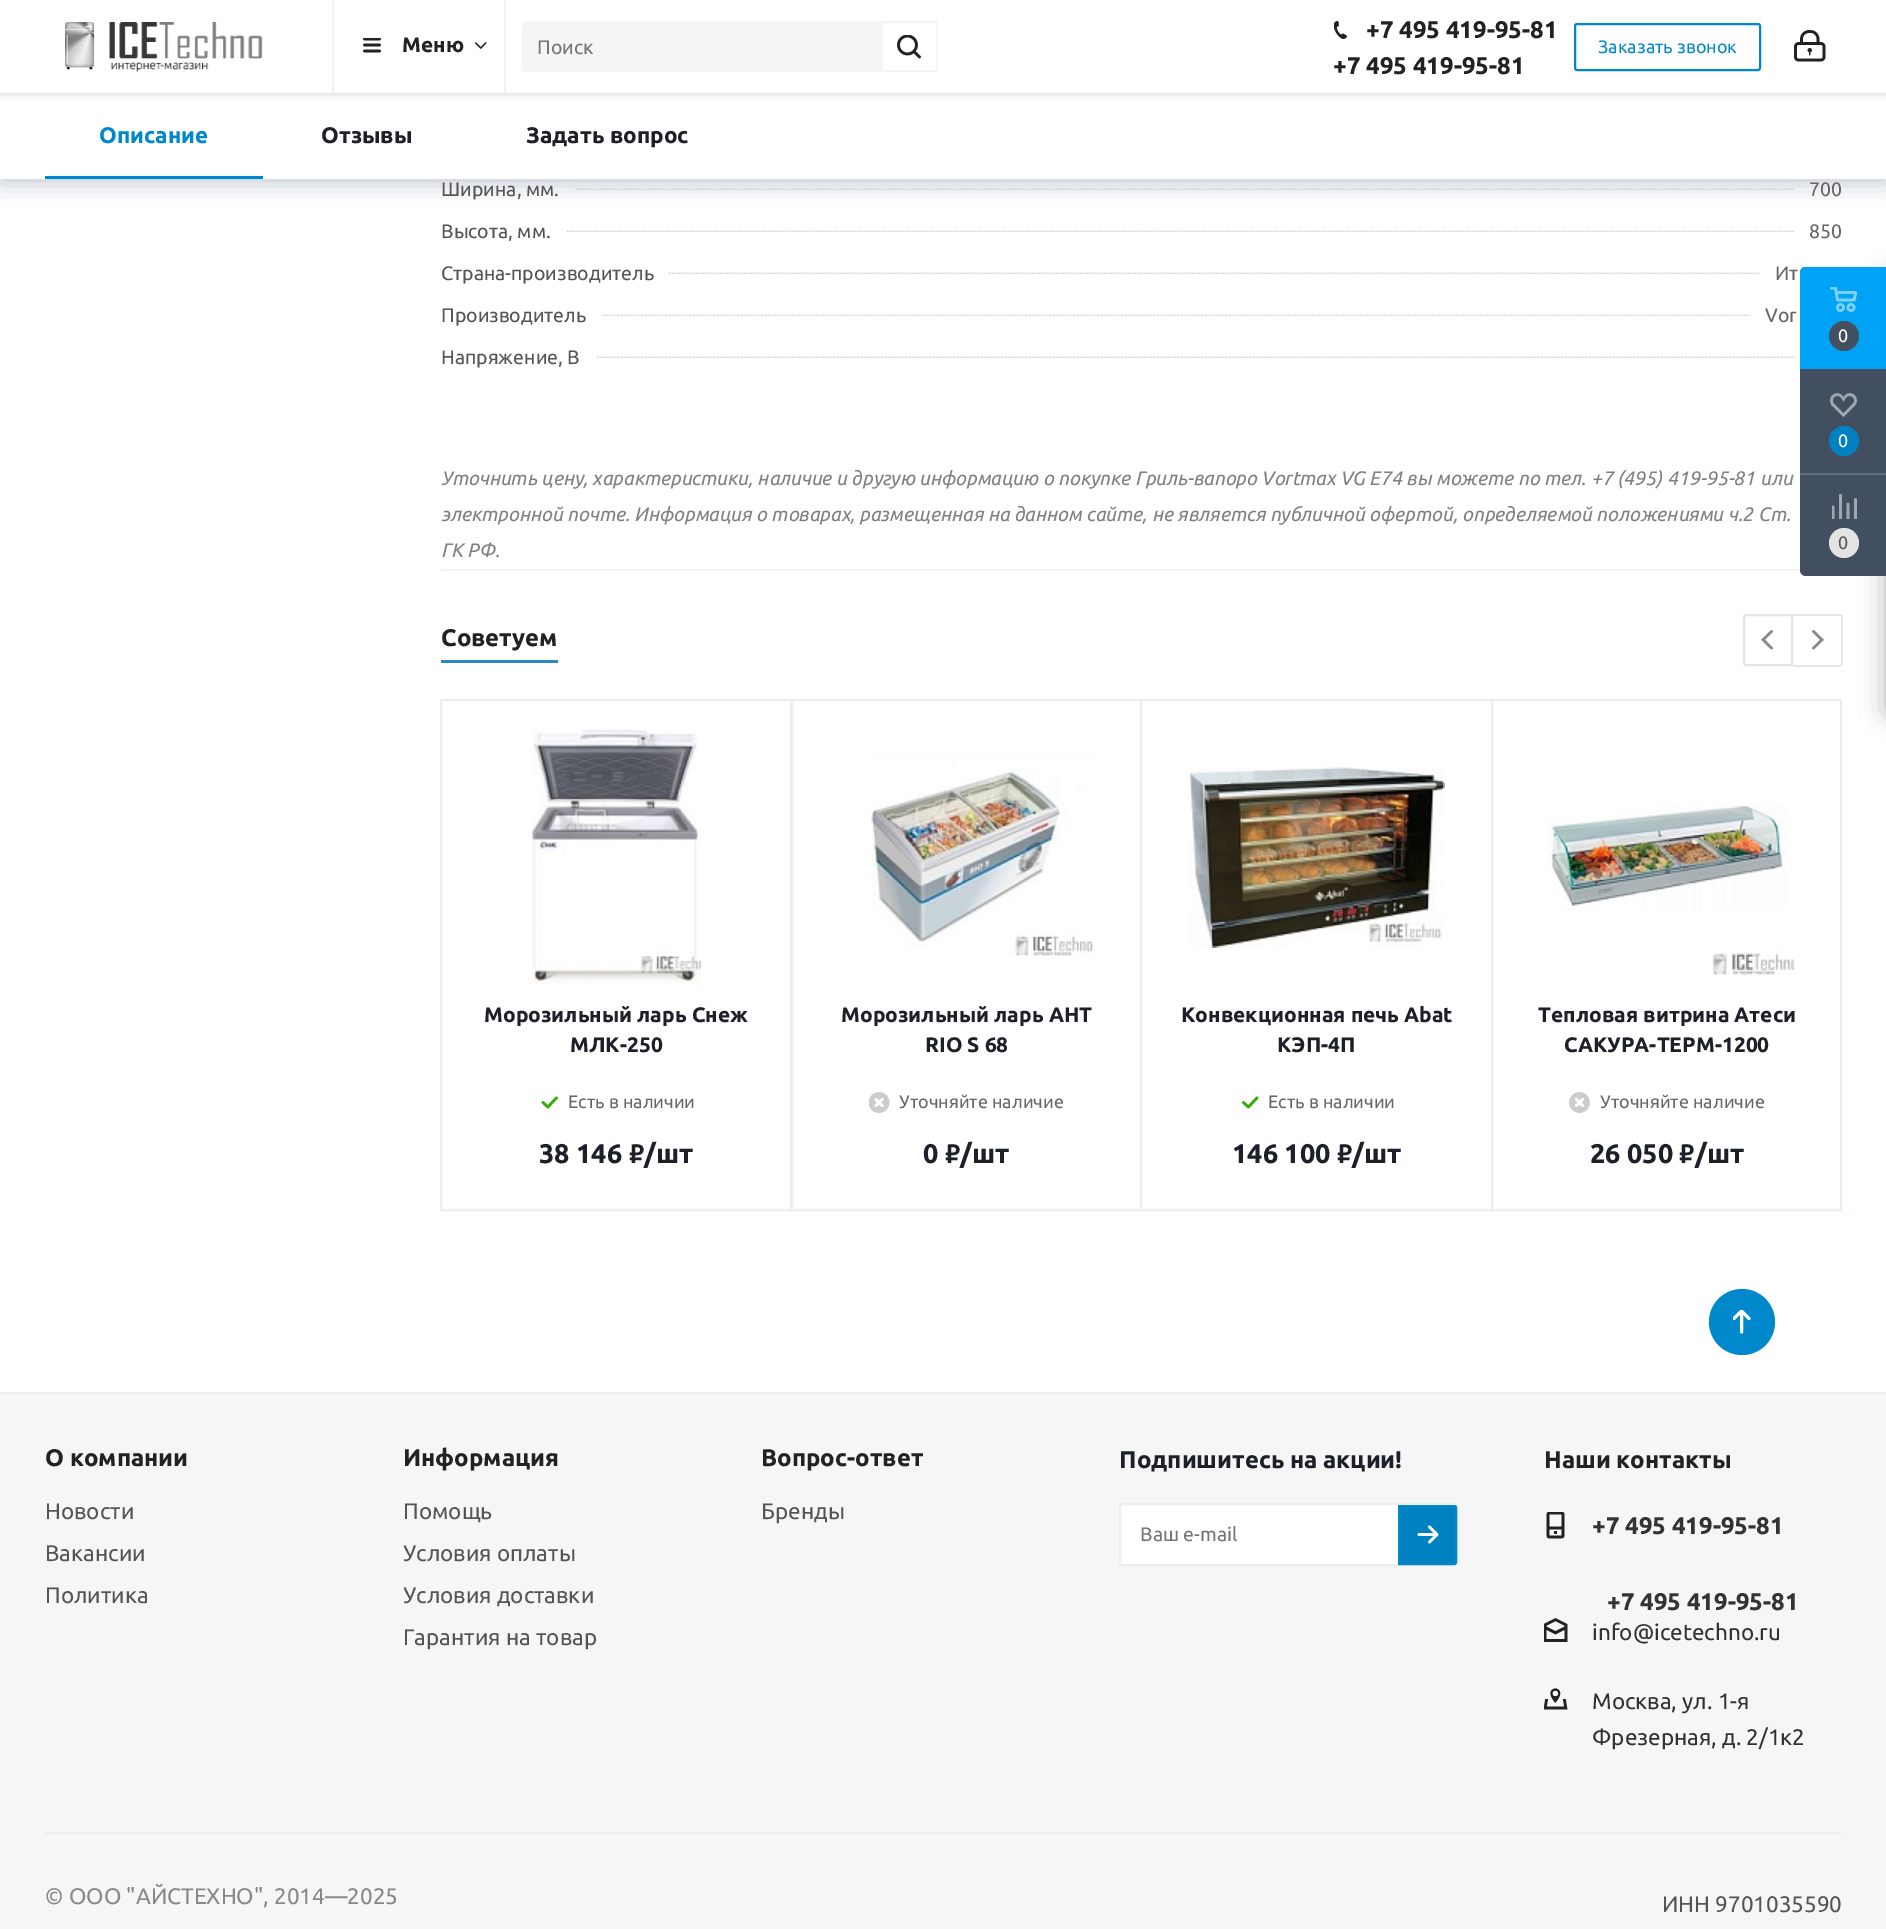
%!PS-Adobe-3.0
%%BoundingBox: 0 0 1886 1929
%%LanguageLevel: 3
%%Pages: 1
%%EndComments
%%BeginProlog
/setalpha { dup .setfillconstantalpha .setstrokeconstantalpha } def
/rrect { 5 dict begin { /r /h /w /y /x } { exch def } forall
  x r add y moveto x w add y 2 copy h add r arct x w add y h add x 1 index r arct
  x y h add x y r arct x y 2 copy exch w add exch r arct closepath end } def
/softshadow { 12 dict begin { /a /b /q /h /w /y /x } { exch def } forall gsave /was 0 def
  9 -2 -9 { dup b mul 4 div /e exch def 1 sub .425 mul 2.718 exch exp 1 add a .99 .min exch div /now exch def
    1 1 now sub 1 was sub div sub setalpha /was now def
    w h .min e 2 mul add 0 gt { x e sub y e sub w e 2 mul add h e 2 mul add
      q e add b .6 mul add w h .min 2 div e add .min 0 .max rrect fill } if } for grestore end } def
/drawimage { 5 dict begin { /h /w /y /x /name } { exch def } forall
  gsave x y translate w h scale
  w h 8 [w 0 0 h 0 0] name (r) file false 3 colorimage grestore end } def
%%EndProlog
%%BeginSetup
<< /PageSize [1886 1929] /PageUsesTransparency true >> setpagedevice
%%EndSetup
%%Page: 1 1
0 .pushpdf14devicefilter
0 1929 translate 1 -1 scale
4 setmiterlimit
1 setgray
0 0 1886 1929 rectfill
(images/7.raw) 575 188 567 2 drawimage
(images/8.raw) 1142 188 652 2 drawimage
0.125 0.212 0.29 setrgbcolor
0 99 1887 86 0 10.5 0.23 softshadow
1 setgray
0 93 1886 86 rectfill
0 setgray
0 2 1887 93 0 4 0.14 softshadow
1 setgray
0 0 1886 93 rectfill
0.949 setgray
332 0 2 93 rectfill
(images/1.raw) 65 22 198 50 drawimage
504 0 2 93 rectfill
(images/2.raw) 363 38 18 15 drawimage
(images/3.raw) 475 42 12 7 drawimage
0.961 setgray
522 21 416 51 5 rrect fill
1 setgray
882 22 55 49 2 rrect gsave fill grestore
0.961 setgray
2 setlinewidth
stroke
(images/4.raw) 897 35 24 24 drawimage
(images/5.raw) 1334 21 13 18 drawimage
0 0.533 0.8 setrgbcolor
1575 24 185 46 2 rrect stroke
(images/6.raw) 1794 30 32 32 drawimage
45 176 218 3 rectfill
(images/9.raw) 566 230 576 2 drawimage
(images/8.raw) 1142 230 652 2 drawimage
(images/10.raw) 669 272 473 2 drawimage
(images/11.raw) 1142 272 618 2 drawimage
(images/12.raw) 602 314 540 2 drawimage
(images/13.raw) 1142 314 609 2 drawimage
(images/14.raw) 596 356 546 2 drawimage
(images/8.raw) 1142 356 652 2 drawimage
0.949 setgray
441 569 1360 2 rectfill
0.161 0.541 0.761 setrgbcolor
441 660 117 3 rectfill
0.898 setgray
newpath 1746 615 moveto 1792 615 lineto 1792 665 lineto 1746 665 lineto 1745 665 1744 664 1744 663 curveto 1744 617 lineto 1744 616 1745 615 1746 615 curveto closepath stroke
(images/15.raw) 1761 630 12 20 drawimage
1793 614 48 2 rectfill
1841 615 2 50 rectfill
1793 665 48 2 rectfill
(images/16.raw) 1812 630 12 20 drawimage
0.933 setgray
441 700 350 510 rectstroke
(images/17.raw) 532 730 169 255 drawimage
(images/18.raw) 541 1096 17 13 drawimage
792 700 349 510 rectstroke
(images/19.raw) 870 753 224 204 drawimage
(images/20.raw) 869 1092 21 21 drawimage
1141 700 351 510 rectstroke
(images/21.raw) 1189 767 256 181 drawimage
(images/22.raw) 1242 1096 17 13 drawimage
1492 700 349 510 rectstroke
(images/23.raw) 1548 804 247 172 drawimage
(images/24.raw) 1569 1092 21 21 drawimage
gsave
426 672 1431 593 rectclip
1842 700 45 510 rectstroke
grestore
1 setgray
1842 699 15 512 rectfill
0.173 setgray
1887 276 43 438 3 13.5 0.4 softshadow
0.259 0.31 0.376 setrgbcolor
newpath 1806 267 moveto 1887 267 lineto 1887 576 lineto 1806 576 lineto 1802.5 576 1800 573.5 1800 570 curveto 1800 273 lineto 1800 269.5 1802.5 267 1806 267 curveto closepath fill
0 0.639 0.961 setrgbcolor
newpath 1806 267 moveto 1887 267 lineto 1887 369 lineto 1800 369 lineto 1800 273 lineto 1800 269.5 1802.5 267 1806 267 curveto closepath fill
(images/25.raw) 1830 287 27 25 drawimage
0.259 0.31 0.376 setrgbcolor
newpath 1844 336 15 0 360 arc closepath fill
(images/26.raw) 1830 393 27 24 drawimage
0 0.506 0.761 setrgbcolor
newpath 1844 441 15 0 360 arc closepath fill
0.388 0.435 0.49 setrgbcolor
1800 473 86 2 rectfill
(images/27.raw) 1832 494 25 25 drawimage
0.89 setgray
newpath 1844 543 15 0 360 arc closepath fill
0 0.533 0.8 setrgbcolor
newpath 1742 1322 33 0 360 arc closepath fill
gsave
1733 1310 18 150 rectclip
1 setgray
3 setlinewidth
1 setlinecap
1 setlinejoin
newpath 1741.5 1311 moveto 1741.5 1332 lineto 1734 1318.5 moveto 1741.5 1311 lineto 1749 1318.5 lineto stroke
grestore
0.933 setgray
0 1392 1886 2 rectfill
0.965 0.965 0.969 setrgbcolor
0 1394 1886 535 rectfill
1 setgray
1120 1504 337 61 2 rrect gsave fill grestore
0.933 setgray
stroke
0 0.506 0.761 setrgbcolor
newpath 1398 1505 moveto 1454 1505 lineto 1455.5 1505 1457 1506.5 1457 1508 curveto 1457 1562 lineto 1457 1563.5 1455.5 1565 1454 1565 curveto 1398 1565 lineto closepath fill
(images/28.raw) 1417 1525 22 19 drawimage
0 0.533 0.8 setrgbcolor
newpath 1399 1506 moveto 1454 1506 lineto 1455 1506 1456 1507 1456 1508 curveto 1456 1562 lineto 1456 1563 1455 1564 1454 1564 curveto 1399 1564 lineto closepath stroke
(images/29.raw) 1546 1512 19 27 drawimage
(images/30.raw) 1544 1618 24 24 drawimage
(images/31.raw) 1544 1688 24 22 drawimage
0.933 setgray
45 1832 1797 2 rectfill
/Ubuntu-Bold [21 0 0 -21 0 0] selectfont
0.133 setgray
402 52 moveto (Меню) show
/Ubuntu-Regular [19.5 0 0 -19.5 0 0] selectfont
0.459 setgray
537 54 moveto (Поиск) show
/Ubuntu-Bold [24 0 0 -24 0 0] selectfont
0.133 setgray
1366 38 moveto (+7 495 419-95-81) show
1333 74 moveto (+7 495 419-95-81) show
/Ubuntu-Regular [18 0 0 -18 0 0] selectfont
0 0.533 0.8 setrgbcolor
1598 53 moveto (Заказать звонок) show
/Ubuntu-Bold [22.5 0 0 -22.5 0 0] selectfont
99 143 moveto (Описание) show
0.114 0.125 0.161 setrgbcolor
321 143 moveto (Отзывы) show
526 143 moveto (Задать вопрос) show
/Ubuntu-Regular [19.5 0 0 -19.5 0 0] selectfont
0.333 setgray
441 196 moveto (Ширина, мм.) show
0.4 setgray
1809 196 moveto (700) show
0.333 setgray
441 238 moveto (Высота, мм.) show
0.4 setgray
1809 238 moveto (850) show
0.333 setgray
441 280 moveto (Страна-производитель) show
0.4 setgray
1775 280 moveto (Ит) show
0.333 setgray
441 322 moveto (Производитель) show
0.4 setgray
1765 322 moveto (Vor) show
0.333 setgray
441 364 moveto (Напряжение, В) show
/Ubuntu-Italic [19.5 0 0 -19.5 0 0] selectfont
0.502 setgray
441 485 moveto (Уточнить цену, характеристики, наличие и другую информацию о покупке Гриль-вапоро Vortmax VG E74 вы можете по тел. +7 \(495\) 419-95-81 или) show
441 521 moveto (электронной почте. Информация о товарах, размещенная на данном сайте, не является публичной офертой, определяемой положениями ч.2 Ст.) show
441 557 moveto (ГК РФ.) show
/Ubuntu-Bold [24 0 0 -24 0 0] selectfont
0.133 setgray
441 646 moveto (Советуем) show
/Ubuntu-Bold [21 0 0 -21 0 0] selectfont
0.114 0.125 0.161 setrgbcolor
484 1022 moveto (Морозильный ларь Снеж) show
570 1052 moveto (МЛК-250) show
/Ubuntu-Regular [18 0 0 -18 0 0] selectfont
0.4 setgray
568 1108 moveto (Есть в наличии) show
/Ubuntu-Bold [27 0 0 -27 0 0] selectfont
0.114 0.125 0.161 setrgbcolor
539 1163 moveto (38 146) show
/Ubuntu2-Bold [27 0 0 -27 0 0] selectfont
629 1163 moveto (₽) show
/Ubuntu-Bold [27 0 0 -27 0 0] selectfont
644 1163 moveto (/шт) show
/Ubuntu-Bold [21 0 0 -21 0 0] selectfont
841 1022 moveto (Морозильный ларь AHT) show
925 1052 moveto (RIO S 68) show
/Ubuntu-Regular [18 0 0 -18 0 0] selectfont
0.4 setgray
899 1108 moveto (Уточняйте наличие) show
/Ubuntu-Bold [27 0 0 -27 0 0] selectfont
0.114 0.125 0.161 setrgbcolor
923 1163 moveto (0) show
/Ubuntu2-Bold [27 0 0 -27 0 0] selectfont
945 1163 moveto (₽) show
/Ubuntu-Bold [27 0 0 -27 0 0] selectfont
960 1163 moveto (/шт) show
/Ubuntu-Bold [21 0 0 -21 0 0] selectfont
1181 1022 moveto (Конвекционная печь Abat) show
1277 1052 moveto (КЭП-4П) show
/Ubuntu-Regular [18 0 0 -18 0 0] selectfont
0.4 setgray
1268 1108 moveto (Есть в наличии) show
/Ubuntu-Bold [27 0 0 -27 0 0] selectfont
0.114 0.125 0.161 setrgbcolor
1232 1163 moveto (146 100) show
/Ubuntu2-Bold [27 0 0 -27 0 0] selectfont
1337 1163 moveto (₽) show
/Ubuntu-Bold [27 0 0 -27 0 0] selectfont
1352 1163 moveto (/шт) show
/Ubuntu-Bold [21 0 0 -21 0 0] selectfont
1538 1022 moveto (Тепловая витрина Атеси) show
1564 1052 moveto (САКУРА-ТЕРМ-1200) show
/Ubuntu-Regular [18 0 0 -18 0 0] selectfont
0.4 setgray
1600 1108 moveto (Уточняйте наличие) show
/Ubuntu-Bold [27 0 0 -27 0 0] selectfont
0.114 0.125 0.161 setrgbcolor
1590 1163 moveto (26 050) show
/Ubuntu2-Bold [27 0 0 -27 0 0] selectfont
1679 1163 moveto (₽) show
/Ubuntu-Bold [27 0 0 -27 0 0] selectfont
1695 1163 moveto (/шт) show
/Ubuntu-Regular [18 0 0 -18 0 0] selectfont
1 setgray
1838 342 moveto (0) show
1838 447 moveto (0) show
0.333 setgray
1838 549 moveto (0) show
/Ubuntu-Bold [24 0 0 -24 0 0] selectfont
0.133 setgray
45 1466 moveto (О компании) show
/Ubuntu-Regular [22.5 0 0 -22.5 0 0] selectfont
0.333 setgray
45 1519 moveto (Новости) show
45 1561 moveto (Вакансии) show
45 1603 moveto (Политика) show
/Ubuntu-Bold [24 0 0 -24 0 0] selectfont
0.133 setgray
403 1466 moveto (Информация) show
/Ubuntu-Regular [22.5 0 0 -22.5 0 0] selectfont
0.333 setgray
403 1519 moveto (Помощь) show
403 1561 moveto (Условия оплаты) show
403 1603 moveto (Условия доставки) show
403 1645 moveto (Гарантия на товар) show
/Ubuntu-Bold [24 0 0 -24 0 0] selectfont
0.133 setgray
761 1466 moveto (Вопрос-ответ) show
/Ubuntu-Regular [22.5 0 0 -22.5 0 0] selectfont
0.333 setgray
761 1519 moveto (Бренды) show
/Ubuntu-Bold [24 0 0 -24 0 0] selectfont
0.114 0.125 0.161 setrgbcolor
1119 1468 moveto (Подпишитесь на акции!) show
/Ubuntu-Regular [19.5 0 0 -19.5 0 0] selectfont
0.459 setgray
1140 1541 moveto (Ваш e-mail) show
/Ubuntu-Bold [24 0 0 -24 0 0] selectfont
0.133 setgray
1544 1468 moveto (Наши контакты) show
0.2 setgray
1592 1534 moveto (+7 495 419-95-81) show
1607 1610 moveto (+7 495 419-95-81) show
/Ubuntu-Regular [22.5 0 0 -22.5 0 0] selectfont
1592 1640 moveto (info@icetechno.ru) show
1592 1709 moveto (Москва, ул. 1-я) show
1592 1745 moveto (Фрезерная, д. 2/1к2) show
0.533 setgray
45 1904 moveto (© ООО "АЙСТЕХНО", 2014—2025) show
0.333 setgray
1662 1912 moveto (ИНН 9701035590) show
.poppdf14devicefilter showpage
%%EOF
